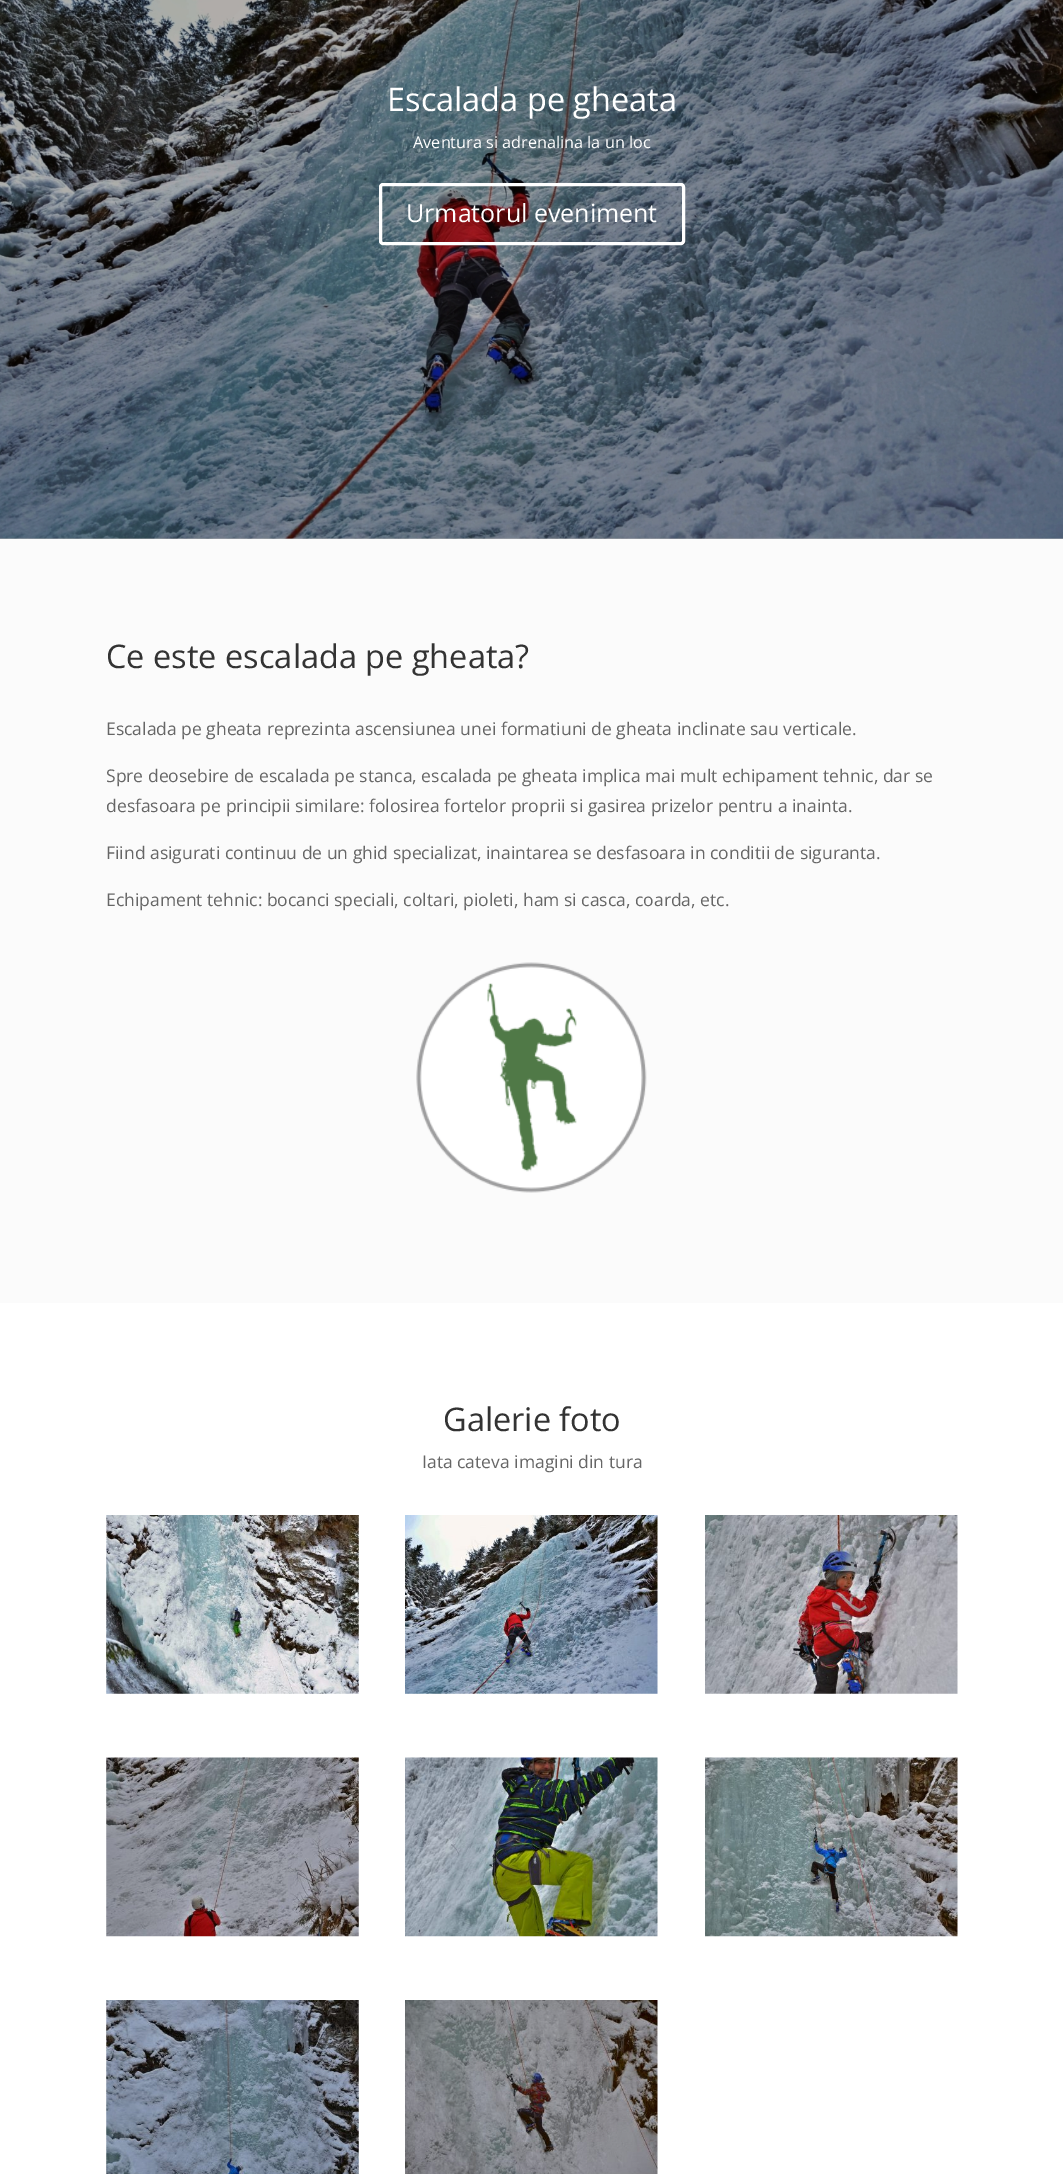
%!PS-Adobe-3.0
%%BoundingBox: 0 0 1063 2174
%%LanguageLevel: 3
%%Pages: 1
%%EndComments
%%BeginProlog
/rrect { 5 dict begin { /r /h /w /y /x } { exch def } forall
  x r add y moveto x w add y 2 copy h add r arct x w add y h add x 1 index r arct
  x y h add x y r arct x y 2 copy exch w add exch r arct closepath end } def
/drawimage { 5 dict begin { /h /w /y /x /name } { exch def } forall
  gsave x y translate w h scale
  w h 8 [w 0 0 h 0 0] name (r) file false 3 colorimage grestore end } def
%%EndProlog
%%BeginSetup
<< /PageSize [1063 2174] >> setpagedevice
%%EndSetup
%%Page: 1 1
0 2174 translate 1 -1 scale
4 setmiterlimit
1 setgray
0 0 1063 2174 rectfill
0.702 setgray
0 538 1063 1 rectfill
(images/1.raw) 0 0 1063 539 drawimage
1 setgray
3 setlinewidth
380.5 184.5 303 59 2.5 rrect stroke
0.984 setgray
0 539 1063 764 rectfill
(images/2.raw) 416 962 231 231 drawimage
(images/3.raw) 106 1515 253 179 drawimage
(images/4.raw) 405 1515 253 179 drawimage
(images/5.raw) 705 1515 253 179 drawimage
(images/6.raw) 106 1757 253 180 drawimage
(images/7.raw) 405 1757 253 180 drawimage
(images/8.raw) 705 1757 253 180 drawimage
(images/9.raw) 106 2000 253 174 drawimage
(images/10.raw) 405 2000 253 174 drawimage
/OpenSans-Regular [32.5 0 0 -32.5 0 0] selectfont
1 setgray
387 111 moveto (Escalada pe gheata) show
/OpenSans-Regular [16.25 0 0 -16.25 0 0] selectfont
413 148 moveto (Aventura si adrenalina la un loc) show
/OpenSans-Regular [25 0 0 -25 0 0] selectfont
406 222 moveto (Urmatorul eveniment) show
/OpenSans-Regular [32.5 0 0 -32.5 0 0] selectfont
0.2 setgray
106 668 moveto (Ce este escalada pe gheata?) show
/OpenSans-Regular [17.5 0 0 -17.5 0 0] selectfont
0.4 setgray
106 735 moveto (Escalada pe gheata reprezinta ascensiunea unei formatiuni de gheata inclinate sau verticale.) show
106 782 moveto (Spre deosebire de escalada pe stanca, escalada pe gheata implica mai mult echipament tehnic, dar se) show
106 812 moveto (desfasoara pe principii similare: folosirea fortelor proprii si gasirea prizelor pentru a inainta.) show
106 859 moveto (Fiind asigurati continuu de un ghid specializat, inaintarea se desfasoara in conditii de siguranta.) show
106 906 moveto (Echipament tehnic: bocanci speciali, coltari, pioleti, ham si casca, coarda, etc.) show
/OpenSans-Regular [32.5 0 0 -32.5 0 0] selectfont
0.2 setgray
443 1431 moveto (Galerie foto) show
/OpenSans-Regular [17.5 0 0 -17.5 0 0] selectfont
0.4 setgray
422 1468 moveto (Iata cateva imagini din tura) show
showpage
%%EOF
